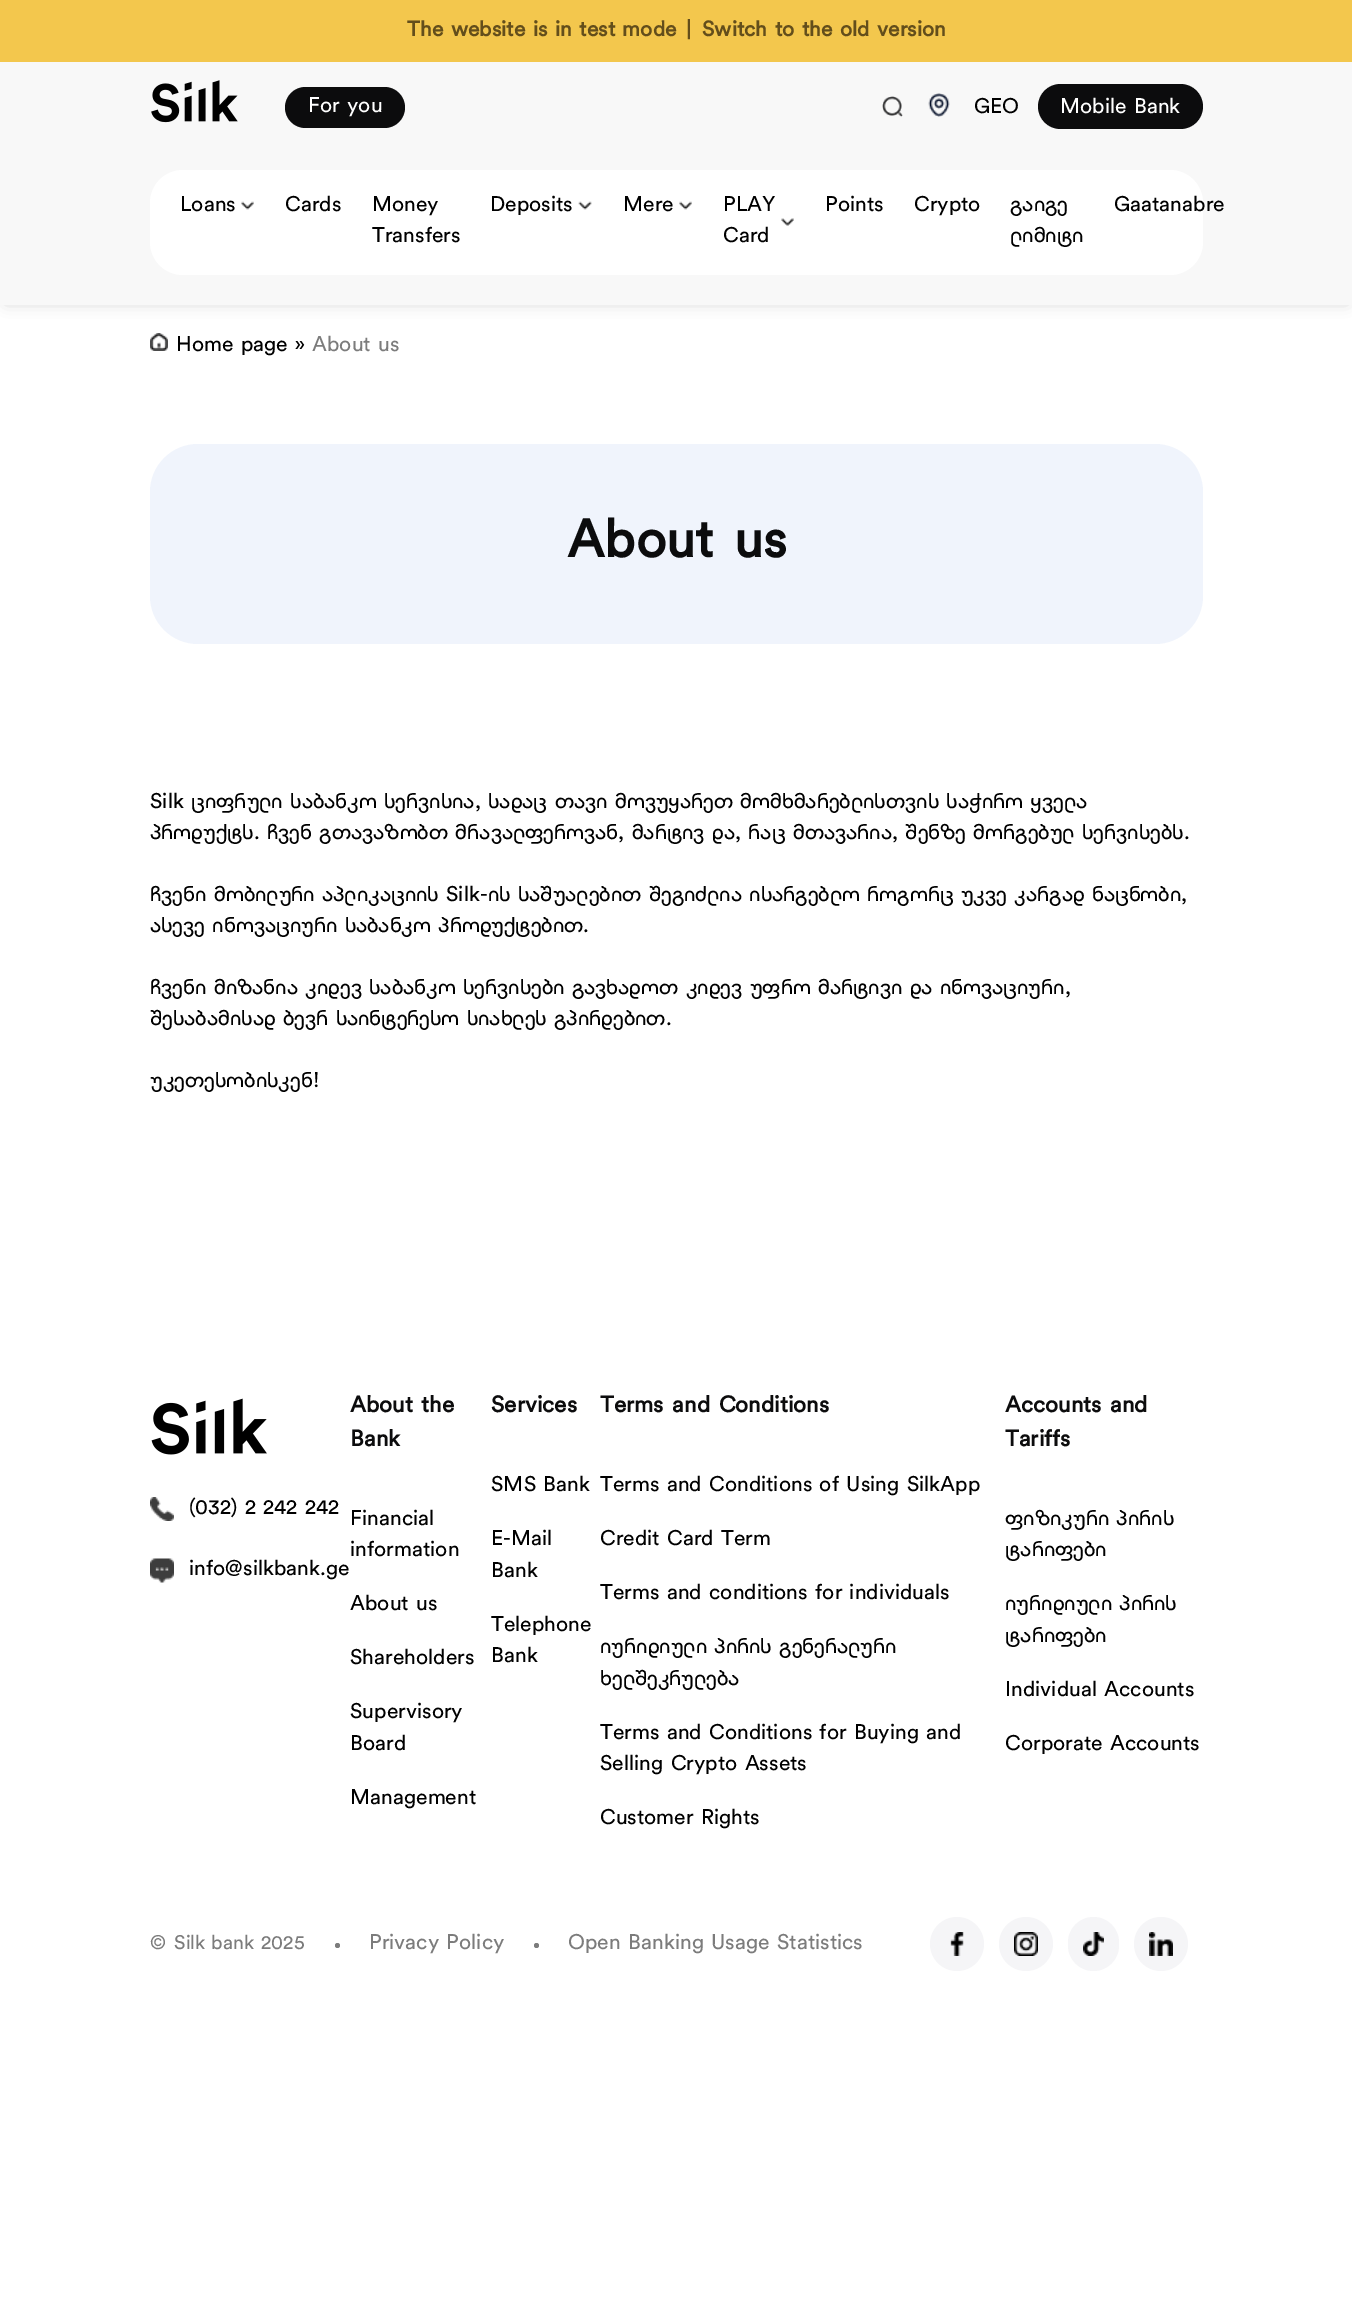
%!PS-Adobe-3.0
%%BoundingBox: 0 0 1352 2297
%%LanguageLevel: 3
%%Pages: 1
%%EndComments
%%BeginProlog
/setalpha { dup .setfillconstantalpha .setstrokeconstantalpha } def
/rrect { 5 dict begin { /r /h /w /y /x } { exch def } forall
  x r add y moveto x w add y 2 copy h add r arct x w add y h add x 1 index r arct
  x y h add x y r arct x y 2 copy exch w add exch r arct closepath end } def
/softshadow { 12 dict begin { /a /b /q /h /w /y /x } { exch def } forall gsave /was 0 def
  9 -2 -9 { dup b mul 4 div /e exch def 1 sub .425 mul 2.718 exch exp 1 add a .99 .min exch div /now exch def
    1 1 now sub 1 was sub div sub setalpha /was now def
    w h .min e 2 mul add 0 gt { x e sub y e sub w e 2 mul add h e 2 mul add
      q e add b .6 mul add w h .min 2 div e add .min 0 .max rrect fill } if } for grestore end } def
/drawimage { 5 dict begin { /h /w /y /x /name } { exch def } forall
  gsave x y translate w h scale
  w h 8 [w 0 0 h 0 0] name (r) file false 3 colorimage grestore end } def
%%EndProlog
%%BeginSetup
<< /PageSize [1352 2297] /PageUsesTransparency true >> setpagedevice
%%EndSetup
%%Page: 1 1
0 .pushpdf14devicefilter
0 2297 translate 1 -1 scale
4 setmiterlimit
1 setgray
0 0 1352 2297 rectfill
0 setgray
6 54 1341 248 0 7.5 0.2 softshadow
0.953 0.78 0.302 setrgbcolor
0 0 1352 62 rectfill
0.973 setgray
0 62 1352 243 rectfill
(images/1.raw) 151 80 87 43 drawimage
0.047 0.047 0.051 setrgbcolor
285 87 120 41 20.5 rrect fill
(images/2.raw) 882 96 21 21 drawimage
(images/3.raw) 928 93 22 24 drawimage
1038 84 165 45 22.5 rrect fill
1 setgray
150 170 1053 105 33 rrect fill
(images/4.raw) 241 201 13 9 drawimage
(images/5.raw) 578 201 14 9 drawimage
(images/4.raw) 679 201 13 9 drawimage
(images/6.raw) 781 218 13 8 drawimage
(images/7.raw) 150 333 18 18 drawimage
0.941 0.957 0.988 setrgbcolor
150 444 1053 200 48 rrect fill
(images/8.raw) 151 1398 116 57 drawimage
(images/9.raw) 150 1497 24 24 drawimage
(images/10.raw) 150 1558 24 25 drawimage
0.486 setgray
newpath 337.5 1945.5 2.5 0 360 arc closepath fill
newpath 536.5 1945.5 2.5 0 360 arc closepath fill
0.961 0.961 0.969 setrgbcolor
newpath 957 1944 27 0 360 arc closepath fill
(images/11.raw) 950 1932 14 24 drawimage
newpath 1026 1944 27 0 360 arc closepath fill
(images/12.raw) 1014 1932 24 24 drawimage
1068 1917 51 54 25.5 rrect fill
(images/13.raw) 1083 1932 21 24 drawimage
newpath 1161 1944 27 0 360 arc closepath fill
(images/14.raw) 1149 1932 24 24 drawimage
/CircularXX-Bold [21 0 0 -21 0 0] selectfont
0.388 0.306 0.106 setrgbcolor
407 36 moveto 2.25 0 32 (The website is in test mode) widthshow
/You-Bold [21 0 0 -21 0 0] selectfont
687 36 moveto (|) show
/CircularXX-Bold [21 0 0 -21 0 0] selectfont
702 36 moveto 2.25 0 32 (Switch to the old version) widthshow
/CircularXX-Regular [21 0 0 -21 0 0] selectfont
1 setgray
308 112 moveto 2 0 32 (For you) widthshow
0 setgray
974 113 moveto (GEO) show
1 setgray
1060 113 moveto 2 0 32 (Mobile Bank) widthshow
0 setgray
180 211 moveto (Loans) show
285 211 moveto (Cards) show
372 211 moveto (Money) show
372 242 moveto (Transfers) show
490 211 moveto (Deposits) show
623 211 moveto (Mere) show
723 211 moveto (PLAY) show
723 242 moveto (Card) show
825 211 moveto (Points) show
914 211 moveto (Crypto) show
/You-Regular [21 0 0 -21 0 0] selectfont
1010 211 moveto (გაიგე) show
1010 242 moveto (ლიმიტი) show
/CircularXX-Regular [21 0 0 -21 0 0] selectfont
1114 211 moveto (Gaatanabre) show
176 351 moveto 2 0 32 (Home page) widthshow
/You-Regular [21 0 0 -21 0 0] selectfont
295 351 moveto (») show
/CircularXX-Regular [21 0 0 -21 0 0] selectfont
0.486 setgray
312 351 moveto 2 0 32 (About us) widthshow
/CircularXX-Bold [52.5 0 0 -52.5 0 0] selectfont
0.047 0.047 0.051 setrgbcolor
567 557 moveto 7 0 32 (About us) widthshow
/CircularXX-Regular [21 0 0 -21 0 0] selectfont
0 setgray
150 808 moveto (Silk) show
/You-Regular [21 0 0 -21 0 0] selectfont
191 808 moveto (ციფრული საბანკო სერვისია, სადაც თავი მოვუყარეთ მომხმარებლისთვის საჭირო ყველა) show
150 839 moveto (პროდუქტს. ჩვენ გთავაზობთ მრავალფეროვან, მარტივ და, რაც მთავარია, შენზე მორგებულ სერვისებს.) show
150 901 moveto (ჩვენი მობილური აპლიკაციის) show
/CircularXX-Regular [21 0 0 -21 0 0] selectfont
446 901 moveto (Silk) show
/You-Regular [21 0 0 -21 0 0] selectfont
480 901 moveto (-ის საშუალებით შეგიძლია ისარგებლო როგორც უკვე კარგად ნაცნობი,) show
150 932 moveto (ასევე ინოვაციური საბანკო პროდუქტებით.) show
150 994 moveto (ჩვენი მიზანია კიდევ საბანკო სერვისები გავხადოთ კიდევ უფრო მარტივი და ინოვაციური,) show
150 1025 moveto (შესაბამისად ბევრ საინტერესო სიახლეს გპირდებით.) show
150 1087 moveto (უკეთესობისკენ!) show
189 1514 moveto (\(032\) 2 242 242) show
/CircularXX-Regular [21 0 0 -21 0 0] selectfont
189 1575 moveto (info) show
/You-Regular [21 0 0 -21 0 0] selectfont
225 1575 moveto (@) show
/CircularXX-Regular [21 0 0 -21 0 0] selectfont
243 1575 moveto (silkbank) show
/You-Regular [21 0 0 -21 0 0] selectfont
320 1575 moveto (.) show
/CircularXX-Regular [21 0 0 -21 0 0] selectfont
326 1575 moveto (ge) show
/CircularXX-Bold [22.5 0 0 -22.5 0 0] selectfont
0.047 0.047 0.051 setrgbcolor
350 1412 moveto 3 0 32 (About the) widthshow
350 1446 moveto (Bank) show
/CircularXX-Regular [21 0 0 -21 0 0] selectfont
0 setgray
350 1525 moveto (Financial) show
350 1556 moveto (information) show
350 1610 moveto 2 0 32 (About us) widthshow
350 1664 moveto (Shareholders) show
350 1718 moveto (Supervisory) show
350 1750 moveto (Board) show
350 1804 moveto (Management) show
/CircularXX-Bold [22.5 0 0 -22.5 0 0] selectfont
0.047 0.047 0.051 setrgbcolor
491 1412 moveto (Services) show
/CircularXX-Regular [21 0 0 -21 0 0] selectfont
0 setgray
491 1491 moveto 2 0 32 (SMS Bank) widthshow
491 1545 moveto (E) show
/You-Regular [21 0 0 -21 0 0] selectfont
503 1545 moveto (-) show
/CircularXX-Regular [21 0 0 -21 0 0] selectfont
511 1545 moveto (Mail) show
491 1577 moveto (Bank) show
491 1631 moveto (Telephone) show
491 1662 moveto (Bank) show
/CircularXX-Bold [22.5 0 0 -22.5 0 0] selectfont
0.047 0.047 0.051 setrgbcolor
600 1412 moveto 3 0 32 (Terms and Conditions) widthshow
/CircularXX-Regular [21 0 0 -21 0 0] selectfont
0 setgray
600 1491 moveto 2 0 32 (Terms and Conditions of Using SilkApp) widthshow
600 1545 moveto 2 0 32 (Credit Card Term) widthshow
600 1599 moveto 2 0 32 (Terms and conditions for individuals) widthshow
/You-Regular [21 0 0 -21 0 0] selectfont
600 1653 moveto (იურიდიული პირის გენერალური) show
600 1685 moveto (ხელშეკრულება) show
/CircularXX-Regular [21 0 0 -21 0 0] selectfont
600 1739 moveto 2 0 32 (Terms and Conditions for Buying and) widthshow
600 1770 moveto 2 0 32 (Selling Crypto Assets) widthshow
600 1824 moveto 2 0 32 (Customer Rights) widthshow
/CircularXX-Bold [22.5 0 0 -22.5 0 0] selectfont
0.047 0.047 0.051 setrgbcolor
1005 1412 moveto 3 0 32 (Accounts and) widthshow
1005 1446 moveto (Tariffs) show
/You-Regular [21 0 0 -21 0 0] selectfont
0 setgray
1005 1525 moveto (ფიზიკური პირის) show
1005 1556 moveto (ტარიფები) show
1005 1610 moveto (იურიდიული პირის) show
1005 1642 moveto (ტარიფები) show
/CircularXX-Regular [21 0 0 -21 0 0] selectfont
1005 1696 moveto 2 0 32 (Individual Accounts) widthshow
1005 1750 moveto 2 0 32 (Corporate Accounts) widthshow
/You-Regular [19.5 0 0 -19.5 0 0] selectfont
0.486 setgray
150 1949 moveto (©) show
/CircularXX-Regular [19.5 0 0 -19.5 0 0] selectfont
174 1949 moveto 1 0 32 (Silk bank) widthshow
/You-Regular [19.5 0 0 -19.5 0 0] selectfont
261 1949 moveto (2025) show
/CircularXX-Regular [21 0 0 -21 0 0] selectfont
369 1949 moveto 2 0 32 (Privacy Policy) widthshow
568 1949 moveto 2 0 32 (Open Banking Usage Statistics) widthshow
.poppdf14devicefilter showpage
%%EOF
